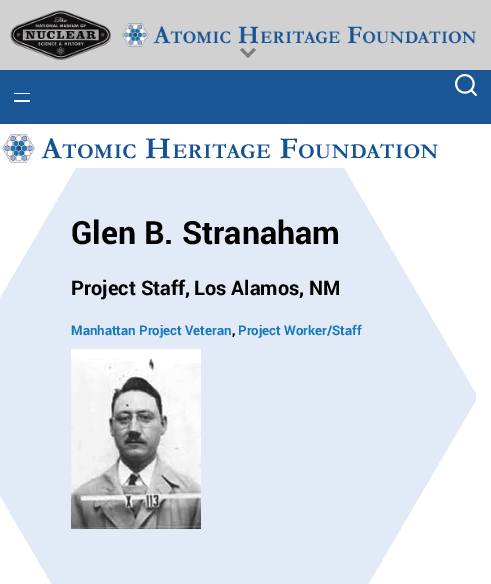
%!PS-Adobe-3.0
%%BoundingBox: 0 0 491 584
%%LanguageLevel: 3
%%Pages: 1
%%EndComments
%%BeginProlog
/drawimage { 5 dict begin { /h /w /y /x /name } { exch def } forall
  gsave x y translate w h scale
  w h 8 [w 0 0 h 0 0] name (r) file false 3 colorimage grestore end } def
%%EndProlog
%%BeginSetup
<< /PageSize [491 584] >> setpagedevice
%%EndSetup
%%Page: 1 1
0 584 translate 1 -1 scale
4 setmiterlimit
1 setgray
0 0 491 584 rectfill
0.82 setgray
0 0 491 70 rectfill
(images/1.raw) 10 10 102 50 drawimage
(images/2.raw) 121 23 355 24 drawimage
0.49 setgray
newpath 253.5 48 moveto 256 50 lineto 248 58 lineto 246 56 lineto closepath fill
newpath 242.5 48 moveto 250 56 lineto 248 58 lineto 240 50 lineto closepath fill
0.102 0.333 0.584 setrgbcolor
0 70 491 54 rectfill
(images/3.raw) 455 74 22 22 drawimage
1 setgray
14 93 16 1 rectfill
14 100 16 2 rectfill
(images/4.raw) 2 134 436 29 drawimage
(images/5.raw) 0 168 476 416 drawimage
(images/6.raw) 71 349 130 180 drawimage
/roboto-Bold [32 0 0 -32 0 0] selectfont
0 setgray
71 244 moveto (Glen B. Stranaham) show
/roboto-Bold [20 0 0 -20 0 0] selectfont
71 295 moveto (Project Staff,) show
194 295 moveto (Los Alamos, NM) show
/roboto-Bold [13.25 0 0 -13.25 0 0] selectfont
0.086 0.482 0.737 setrgbcolor
71 335 moveto (Manhattan Project Veteran) show
0 setgray
232 335 moveto (,) show
0.086 0.482 0.737 setrgbcolor
238 335 moveto (Project Worker/Staff) show
showpage
%%EOF
